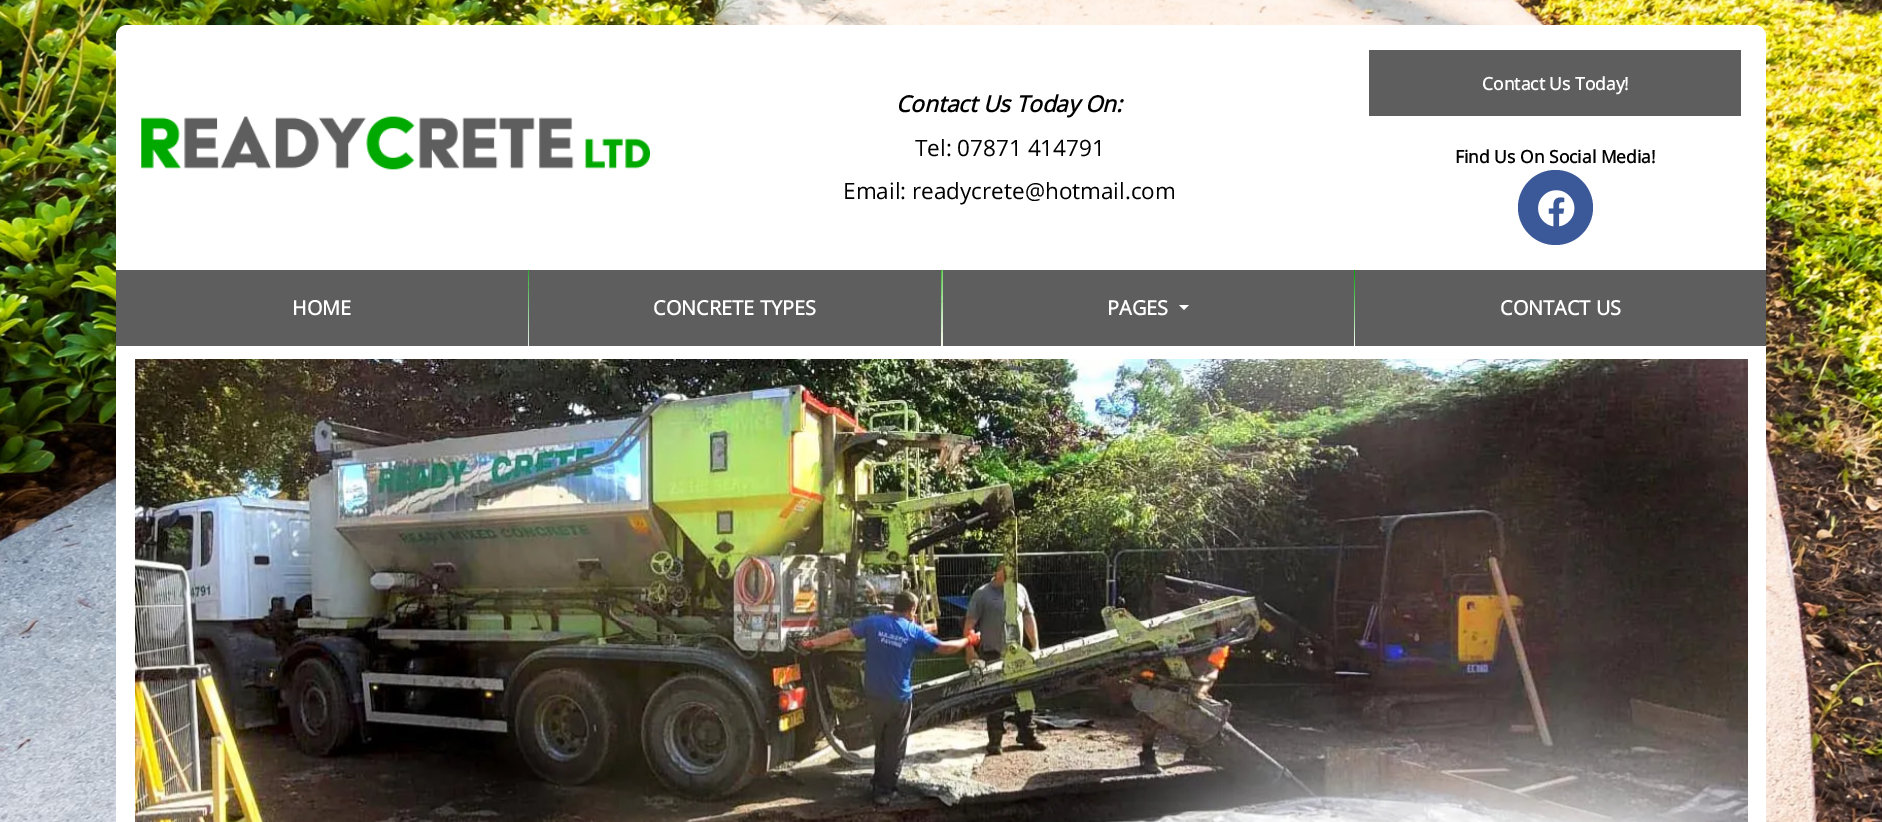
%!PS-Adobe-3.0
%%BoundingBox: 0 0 1882 822
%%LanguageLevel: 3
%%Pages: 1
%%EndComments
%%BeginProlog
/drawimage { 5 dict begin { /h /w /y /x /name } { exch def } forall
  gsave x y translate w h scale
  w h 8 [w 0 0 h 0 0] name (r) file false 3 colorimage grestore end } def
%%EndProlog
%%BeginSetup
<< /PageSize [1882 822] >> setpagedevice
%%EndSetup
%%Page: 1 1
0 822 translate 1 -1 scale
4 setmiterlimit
1 setgray
0 0 1882 822 rectfill
(images/1.raw) 0 0 1882 822 drawimage
newpath 127 25 moveto 1755 25 lineto 1761 25 1766 30 1766 36 curveto 1766 270 lineto 116 270 lineto 116 36 lineto 116 30 121 25 127 25 curveto closepath fill
(images/2.raw) 141 116 509 54 drawimage
0.369 setgray
1369 50 372 66 rectfill
0.231 0.349 0.596 setrgbcolor
newpath 1555.5 207.5 37.5 0 360 arc closepath fill
(images/3.raw) 1538 190 37 37 drawimage
(images/4.raw) 528 270 1 76 drawimage
0.369 setgray
116 270 412 76 rectfill
(images/5.raw) 941 270 2 76 drawimage
529 270 412 76 rectfill
(images/6.raw) 1354 270 1 76 drawimage
943 270 411 76 rectfill
1 setgray
newpath 1179 305 moveto 1189 305 lineto 1184 310 lineto closepath fill
0.369 setgray
1355 270 411 76 rectfill
1 setgray
116 346 1650 476 rectfill
(images/7.raw) 135 359 1613 463 drawimage
/OpenSans-BoldItalic [22.5 0 0 -22.5 0 0] selectfont
0 setgray
896 112 moveto (Contact Us Today On:) show
/OpenSans-Regular [22.5 0 0 -22.5 0 0] selectfont
915 156 moveto (Tel: 07871 414791) show
843 199 moveto (Email: readycrete@hotmail.com) show
/OpenSans-Bold [17.5 0 0 -17.5 0 0] selectfont
1 setgray
1482 90 moveto (Contact Us Today!) show
0 setgray
1455 163 moveto (Find Us On Social Media!) show
/OpenSans-Bold [20 0 0 -20 0 0] selectfont
1 setgray
292 315 moveto (HOME) show
653 315 moveto (CONCRETE TYPES) show
1107 315 moveto (PAGES) show
1500 315 moveto (CONTACT US) show
showpage
%%EOF
